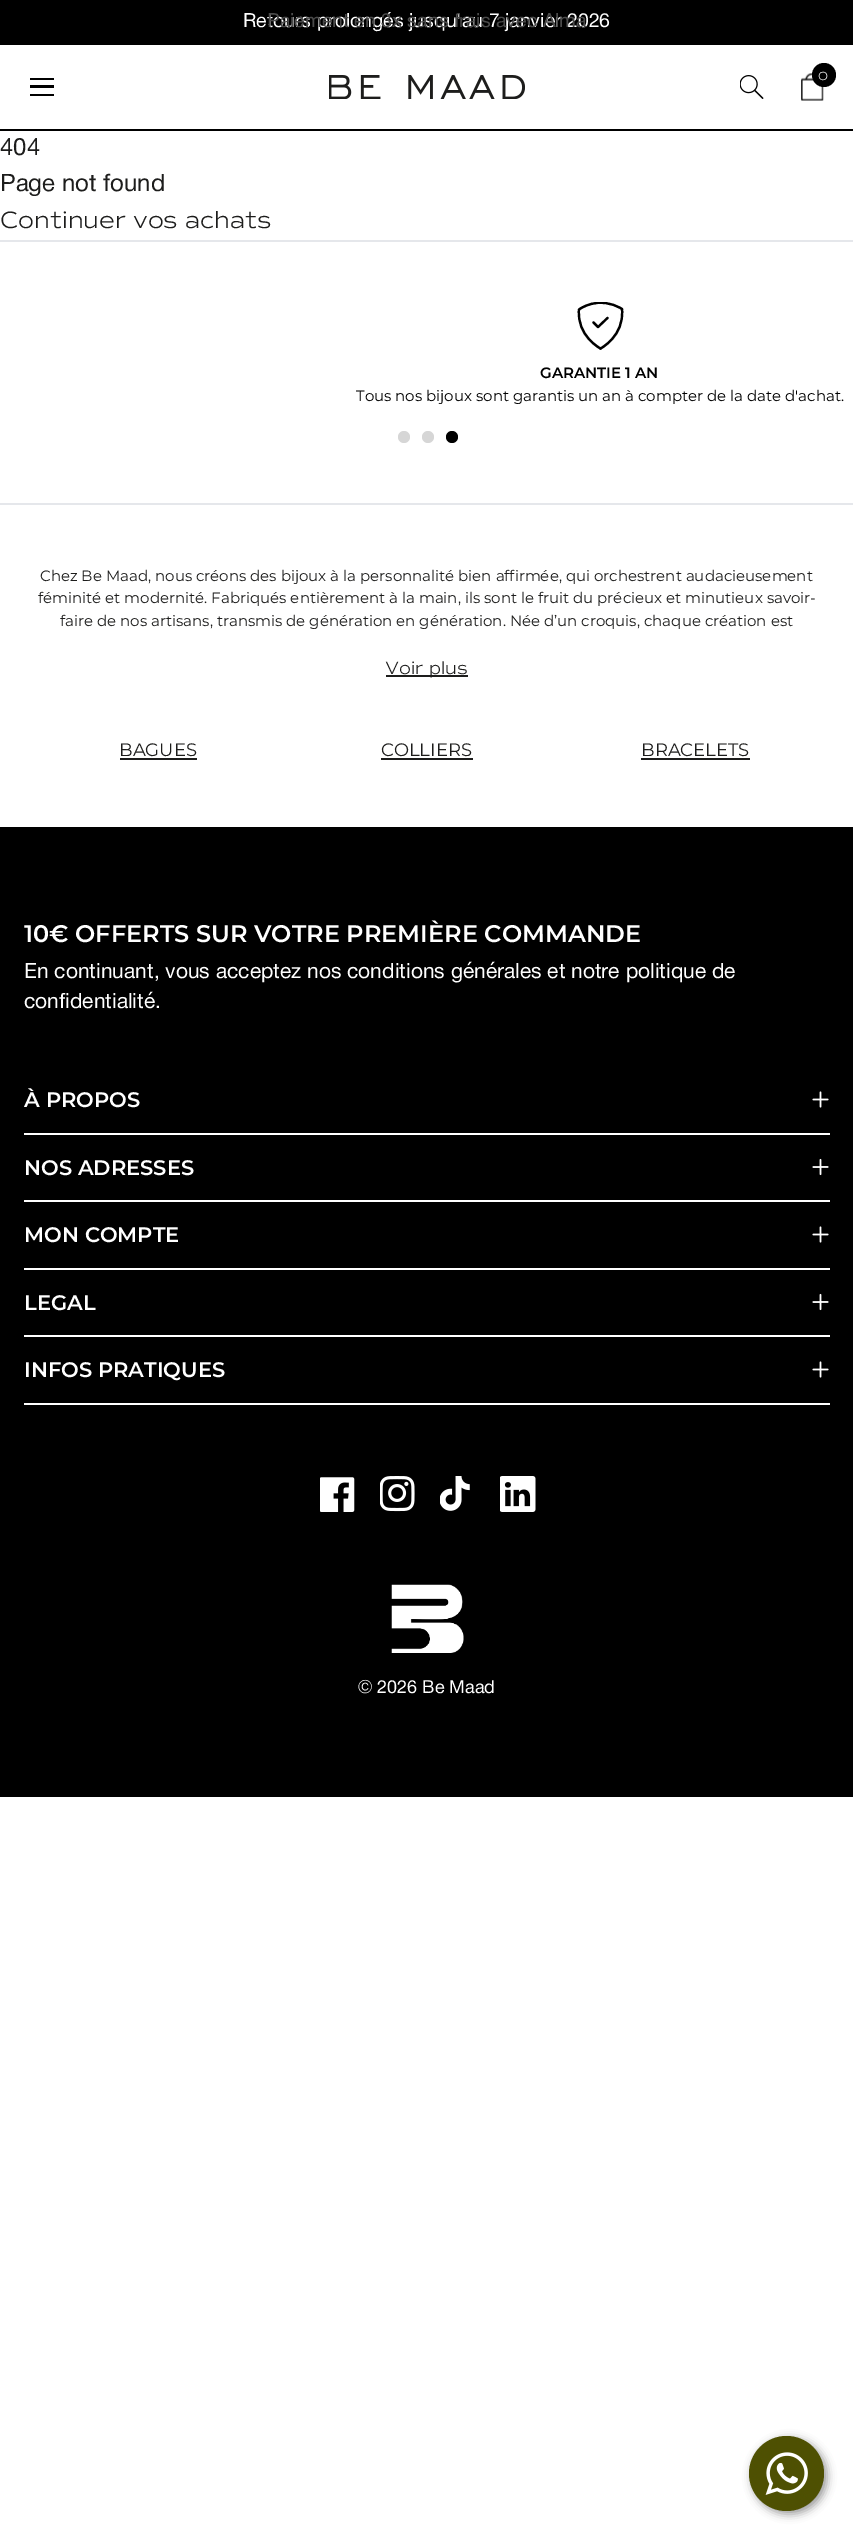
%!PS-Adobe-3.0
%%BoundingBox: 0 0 853 2540
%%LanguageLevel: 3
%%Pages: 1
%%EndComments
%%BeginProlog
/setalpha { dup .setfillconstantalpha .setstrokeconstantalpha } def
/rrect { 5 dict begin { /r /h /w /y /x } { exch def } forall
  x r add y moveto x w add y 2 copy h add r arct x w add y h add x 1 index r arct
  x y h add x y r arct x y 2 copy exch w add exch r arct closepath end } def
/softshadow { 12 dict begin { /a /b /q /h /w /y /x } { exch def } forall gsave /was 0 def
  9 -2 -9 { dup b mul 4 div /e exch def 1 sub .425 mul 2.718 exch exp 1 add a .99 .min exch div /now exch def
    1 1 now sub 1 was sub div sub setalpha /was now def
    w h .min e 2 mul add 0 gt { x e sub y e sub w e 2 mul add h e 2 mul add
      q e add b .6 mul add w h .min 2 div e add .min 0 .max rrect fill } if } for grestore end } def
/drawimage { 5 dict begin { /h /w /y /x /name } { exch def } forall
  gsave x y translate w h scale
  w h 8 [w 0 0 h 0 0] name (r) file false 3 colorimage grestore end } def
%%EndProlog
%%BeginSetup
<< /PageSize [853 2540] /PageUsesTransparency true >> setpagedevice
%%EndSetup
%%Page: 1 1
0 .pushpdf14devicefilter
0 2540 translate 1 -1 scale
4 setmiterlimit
1 setgray
0 0 853 2540 rectfill
0 setgray
0 0 853 45 rectfill
0 129 853 2 rectfill
30 78 24 2 rectfill
30 94 24 2 rectfill
30 85 24 3 rectfill
(images/1.raw) 329 75 196 24 drawimage
(images/2.raw) 740 75 24 24 drawimage
(images/3.raw) 801 73 23 28 drawimage
newpath 824 75 12 0 360 arc closepath fill
0.898 0.906 0.922 setrgbcolor
0 240 853 2 rectfill
0 503 853 2 rectfill
gsave
576 302 48 48 rectclip
0 setgray
2.2 setlinewidth
1 setlinecap
1 setlinejoin
newpath 600.5 348.5 moveto 600.5 348.5 576.5 336 579 309.5 curveto 579 309.5 598.5 294.5 622 309 curveto stroke
grestore
0 setgray
2.2 setlinewidth
1 setlinecap
1 setlinejoin
newpath 622 309.5 moveto 624.5 336 600.5 348.5 600.5 348.5 curveto 593.5 322.5 moveto 598 327 lineto 607.5 318 lineto stroke
0.839 setgray
newpath 404 437 6 0 360 arc closepath fill
newpath 428 437 6 0 360 arc closepath fill
0 setgray
newpath 452 437 6 0 360 arc closepath fill
0.114 0.114 0.11 setrgbcolor
386 675 82 2 rectfill
120 758 77 2 rectfill
381 758 92 2 rectfill
641 758 109 2 rectfill
0 setgray
0 827 853 970 rectfill
1 setgray
24 1133 806 2 rectfill
(images/4.raw) 812 1091 17 17 drawimage
24 1200 806 2 rectfill
(images/5.raw) 812 1158 17 18 drawimage
24 1268 806 2 rectfill
(images/4.raw) 812 1226 17 17 drawimage
24 1335 806 2 rectfill
(images/5.raw) 812 1293 17 18 drawimage
24 1403 806 2 rectfill
(images/4.raw) 812 1361 17 17 drawimage
(images/6.raw) 320 1477 35 35 drawimage
(images/7.raw) 380 1476 35 36 drawimage
(images/8.raw) 440 1476 30 35 drawimage
(images/9.raw) 500 1476 36 36 drawimage
(images/10.raw) 391 1584 73 69 drawimage
0 setgray
752 2439 75 75 37.5 4.5 0.4 softshadow
0.306 0.314 0.008 setrgbcolor
newpath 786.5 2473.5 37.5 0 360 arc closepath fill
(images/11.raw) 765 2452 43 43 drawimage
/HelveticaNeue-Regular [19.5 0 0 -19.5 0 0] selectfont
1 setgray
243 27 moveto (Retours prolongés jusqu'au 7 janvier 2026) show
0.294 setgray
267 27 moveto (Paiement en 3x sans frais avec Alma) show
/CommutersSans-Light [12 0 0 -12 0 0] selectfont
1 setgray
818 80 moveto (0) show
/HelveticaNeue-Regular [24 0 0 -24 0 0] selectfont
0.114 0.114 0.11 setrgbcolor
0 155 moveto (404) show
0 191 moveto (Page not found) show
/CommutersSans-Light [24 0 0 -24 0 0] selectfont
0 228 moveto (Continuer vos achats) show
/Montserrat-SemiBold [15 0 0 -15 0 0] selectfont
0 setgray
540 378 moveto (GARANTIE 1 AN) show
/Montserrat-Regular [15 0 0 -15 0 0] selectfont
356 401 moveto (Tous nos bijoux sont garantis un an à compter de la date d'achat.) show
0.114 0.114 0.11 setrgbcolor
40 581 moveto (Chez Be Maad, nous créons des bijoux à la personnalité bien affirmée, qui orchestrent audacieusement) show
38 603 moveto (féminité et modernité. Fabriqués entièrement à la main, ils sont le fruit du précieux et minutieux savoir-) show
60 626 moveto (faire de nos artisans, transmis de génération en génération. Née d’un croquis, chaque création est) show
/CommutersSans-Light [18 0 0 -18 0 0] selectfont
385 674 moveto (Voir plus) show
/Montserrat-Regular [18 0 0 -18 0 0] selectfont
119 756 moveto (BAGUES) show
381 756 moveto (COLLIERS) show
641 756 moveto (BRACELETS) show
/Montserrat-SemiBold [24 0 0 -24 0 0] selectfont
1 setgray
24 942 moveto (10€ OFFERTS SUR VOTRE PREMIÈRE COMMANDE) show
/HelveticaNeue-Regular [21 0 0 -21 0 0] selectfont
24 978 moveto (En continuant, vous acceptez nos conditions générales et notre politique de) show
24 1008 moveto (confidentialité.) show
/Montserrat-SemiBold [21 0 0 -21 0 0] selectfont
24 1107 moveto (À PROPOS) show
24 1175 moveto (NOS ADRESSES) show
24 1242 moveto (MON COMPTE) show
24 1310 moveto (LEGAL) show
24 1377 moveto (INFOS PRATIQUES) show
/HelveticaNeue-Regular [18 0 0 -18 0 0] selectfont
358 1693 moveto (© 2026 Be Maad) show
.poppdf14devicefilter showpage
%%EOF
